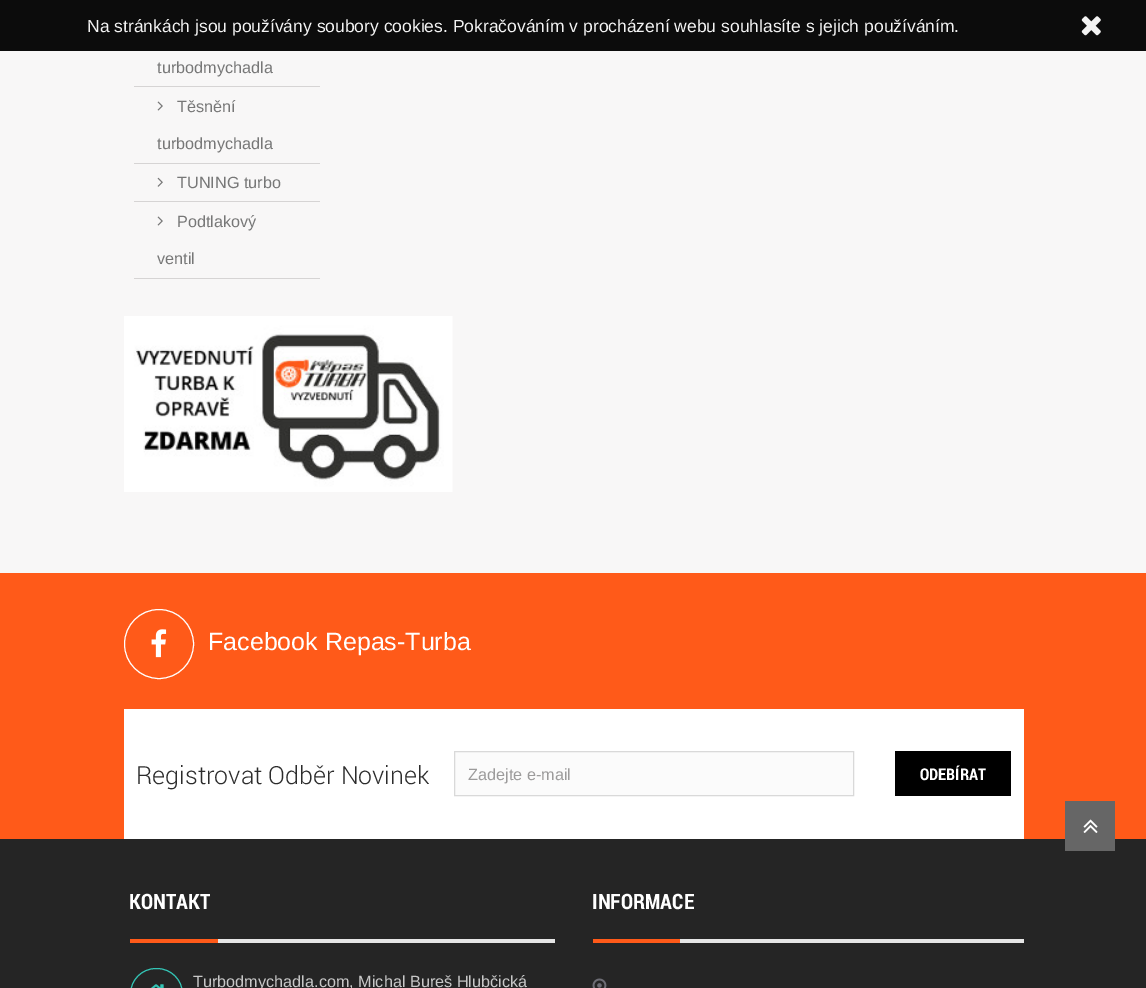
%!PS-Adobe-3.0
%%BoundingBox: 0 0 1146 988
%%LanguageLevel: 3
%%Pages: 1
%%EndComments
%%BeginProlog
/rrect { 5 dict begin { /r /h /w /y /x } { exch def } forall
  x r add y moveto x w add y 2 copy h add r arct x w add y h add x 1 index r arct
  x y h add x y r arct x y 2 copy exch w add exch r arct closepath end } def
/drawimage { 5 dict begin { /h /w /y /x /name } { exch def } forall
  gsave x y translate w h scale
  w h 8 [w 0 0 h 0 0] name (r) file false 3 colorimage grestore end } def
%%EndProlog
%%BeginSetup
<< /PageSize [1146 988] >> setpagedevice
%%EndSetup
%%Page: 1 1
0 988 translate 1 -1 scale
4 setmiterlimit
0.973 0.969 0.969 setrgbcolor
0 0 1146 988 rectfill
0.047 setgray
0 0 1146 51 rectfill
(images/1.raw) 1081 16 20 20 drawimage
0.839 0.831 0.831 setrgbcolor
134 86 186 1 rectfill
(images/2.raw) 157 25 6 10 drawimage
134 163 186 1 rectfill
(images/3.raw) 157 101 6 10 drawimage
134 201 186 1 rectfill
(images/4.raw) 157 177 6 10 drawimage
134 278 186 1 rectfill
(images/3.raw) 157 216 6 10 drawimage
(images/5.raw) 124 316 329 176 drawimage
1 0.353 0.098 setrgbcolor
0 573 1146 266 rectfill
1 setgray
newpath 159 644 34.5 0 360 arc closepath stroke
(images/6.raw) 151 629 16 29 drawimage
124 709 900 130 rectfill
0.984 setgray
newpath 454.5 751.5 moveto 853.5 751.5 lineto 853.5 795.5 lineto 454.5 795.5 lineto closepath gsave fill grestore
0.851 setgray
stroke
0 setgray
895 751 116 45 rectfill
0.145 setgray
0 839 1146 149 rectfill
0.898 setgray
218 939 337 4 rectfill
1 0.353 0.098 setrgbcolor
130 939 88 4 rectfill
0.2 0.769 0.71 setrgbcolor
130.5 968.5 52 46 25.5 rrect stroke
(images/7.raw) 151 984 13 4 drawimage
0.898 setgray
680 939 344 4 rectfill
1 0.353 0.098 setrgbcolor
593 939 87 4 rectfill
(images/8.raw) 592 978 15 10 drawimage
0.4 setgray
1065 801 50 50 rectfill
(images/9.raw) 1083 819 15 14 drawimage
/LiberationSans-Regular [17.5 0 0 -17.5 0 0] selectfont
0.953 setgray
87 32 moveto (Na stránkách jsou používány soubory cookies. Pokračováním v procházení webu souhlasíte s jejich používáním.) show
/LiberationSans-Regular [16.25 0 0 -16.25 0 0] selectfont
0.467 setgray
157 73 moveto (turbodmychadla) show
177 112 moveto (Těsnění) show
157 149 moveto (turbodmychadla) show
177 188 moveto (TUNING turbo) show
177 227 moveto (Podtlakový) show
157 264 moveto (ventil) show
/LiberationSans-Regular [25 0 0 -25 0 0] selectfont
1 setgray
208 650 moveto (Facebook Repas-Turba) show
/Roboto-Light [25 0 0 -25 0 0] selectfont
0.173 setgray
136 784 moveto (Registrovat Odběr Novinek) show
/LiberationSans-Regular [16.25 0 0 -16.25 0 0] selectfont
0.612 0.608 0.608 setrgbcolor
468 780 moveto (Zadejte e-mail) show
/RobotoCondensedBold-Bold [16.25 0 0 -16.25 0 0] selectfont
1 setgray
920 780 moveto (ODEBÍRAT) show
/RobotoCondensedBold-Bold [21.25 0 0 -21.25 0 0] selectfont
129 909 moveto (KONTAKT) show
/LiberationSans-Regular [16.25 0 0 -16.25 0 0] selectfont
0.784 setgray
193 987 moveto (Turbodmychadla.com, Michal Bureš Hlubčická) show
/RobotoCondensedBold-Bold [21.25 0 0 -21.25 0 0] selectfont
1 setgray
592 909 moveto (INFORMACE) show
showpage
%%EOF
